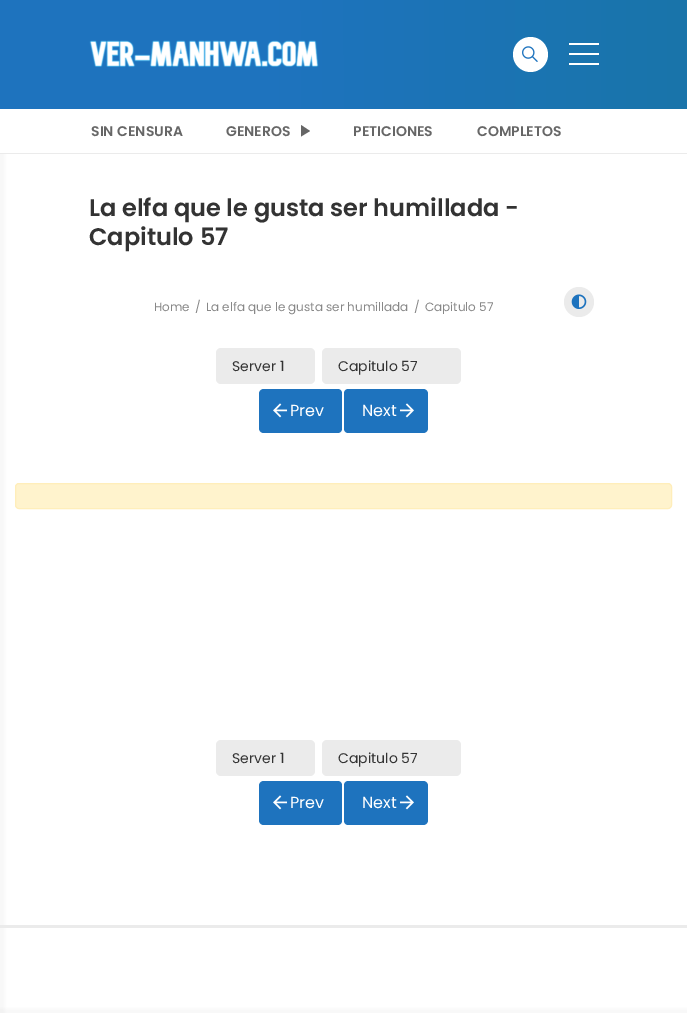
%!PS-Adobe-3.0
%%BoundingBox: 0 0 687 1013
%%LanguageLevel: 3
%%Pages: 1
%%EndComments
%%BeginProlog
/rrect { 5 dict begin { /r /h /w /y /x } { exch def } forall
  x r add y moveto x w add y 2 copy h add r arct x w add y h add x 1 index r arct
  x y h add x y r arct x y 2 copy exch w add exch r arct closepath end } def
/drawimage { 5 dict begin { /h /w /y /x /name } { exch def } forall
  gsave x y translate w h scale
  w h 8 [w 0 0 h 0 0] name (r) file false 3 colorimage grestore end } def
%%EndProlog
%%BeginSetup
<< /PageSize [687 1013] >> setpagedevice
%%EndSetup
%%Page: 1 1
0 1013 translate 1 -1 scale
4 setmiterlimit
1 setgray
0 0 687 1013 rectfill
(images/1.raw) 0 154 687 859 drawimage
gsave newpath 0 0 moveto 687 0 lineto 687 109 lineto 0 109 lineto closepath clip newpath
<< /ShadingType 2 /ColorSpace /DeviceRGB /Coords [0 55 687 54] /Extend [true true] /Function << /FunctionType 3 /Domain [0 1] /Functions [<< /FunctionType 2 /Domain [0 1] /C0 [0.118 0.451 0.745] /C1 [0.118 0.451 0.745] /N 1 >> << /FunctionType 2 /Domain [0 1] /C0 [0.118 0.451 0.745] /C1 [0.098 0.459 0.667] /N 1 >>] /Bounds [0.4] /Encode [0 1 0 1] >> >> shfill grestore
(images/2.raw) 89 40 230 27 drawimage
newpath 530.5 54.5 17.5 0 360 arc closepath fill
(images/3.raw) 522 46 16 16 drawimage
569 43 30 2 rectfill
569 53 30 2 rectfill
569 63 30 2 rectfill
0.922 setgray
0 153 687 1 rectfill
0.4 setgray
newpath 301 125 moveto 310 131 lineto 301 136.5 lineto closepath fill
0.922 setgray
newpath 579 302 15 0 360 arc closepath fill
(images/4.raw) 571 294 16 15 drawimage
216 348 99 36 5 rrect fill
322 348 139 36 5 rrect fill
0.118 0.451 0.745 setrgbcolor
newpath 264 389 moveto 338 389 lineto 340 389 342 391 342 393 curveto 342 429 lineto 342 431 340 433 338 433 curveto 264 433 lineto 261 433 259 431 259 428 curveto 259 394 lineto 259 391 261 389 264 389 curveto closepath fill
(images/5.raw) 273 403 15 15 drawimage
newpath 348 389 moveto 423 389 lineto 426 389 428 391 428 394 curveto 428 428 lineto 428 431 426 433 423 433 curveto 348 433 lineto 346 433 344 431 344 429 curveto 344 393 lineto 344 391 346 389 348 389 curveto closepath fill
(images/6.raw) 400 403 14 15 drawimage
1 0.953 0.804 setrgbcolor
15.5 483.5 656 25 3.5 rrect gsave fill grestore
1 0.933 0.729 setrgbcolor
stroke
0.922 setgray
216 740 99 36 5 rrect fill
322 740 139 36 5 rrect fill
0.118 0.451 0.745 setrgbcolor
newpath 264 781 moveto 338 781 lineto 340 781 342 783 342 785 curveto 342 821 lineto 342 823 340 825 338 825 curveto 264 825 lineto 261 825 259 823 259 820 curveto 259 786 lineto 259 783 261 781 264 781 curveto closepath fill
(images/5.raw) 273 795 15 15 drawimage
newpath 348 781 moveto 423 781 lineto 426 781 428 783 428 786 curveto 428 820 lineto 428 823 426 825 423 825 curveto 348 825 lineto 346 825 344 823 344 821 curveto 344 785 lineto 344 783 346 781 348 781 curveto closepath fill
(images/6.raw) 400 795 14 15 drawimage
0.922 setgray
0 925 687 3 rectfill
/Poppins-SemiBold [14 0 0 -14 0 0] selectfont
0.4 setgray
91 136 moveto (SIN CENSURA) show
226 136 moveto (GENEROS) show
353 136 moveto (PETICIONES) show
477 136 moveto (COMPLETOS) show
/Poppins-SemiBold [24 0 0 -24 0 0] selectfont
0.2 setgray
89 216 moveto (La elfa que le gusta ser humillada -) show
89 245 moveto (Capitulo 57) show
/Poppins-Regular [12 0 0 -12 0 0] selectfont
0.533 setgray
154 311 moveto (Home) show
195 311 moveto (/) show
206 311 moveto (La elfa que le gusta ser humillada) show
414 311 moveto (/) show
425 311 moveto (Capitulo 57) show
/Poppins-Regular [14 0 0 -14 0 0] selectfont
0.2 setgray
232 371 moveto (Server 1) show
338 371 moveto (Capitulo 57) show
/Poppins-Regular [16 0 0 -16 0 0] selectfont
1 setgray
290 416 moveto (Prev) show
362 416 moveto (Next) show
/Poppins-Regular [14 0 0 -14 0 0] selectfont
0.2 setgray
232 763 moveto (Server 1) show
338 763 moveto (Capitulo 57) show
/Poppins-Regular [16 0 0 -16 0 0] selectfont
1 setgray
290 808 moveto (Prev) show
362 808 moveto (Next) show
showpage
%%EOF
